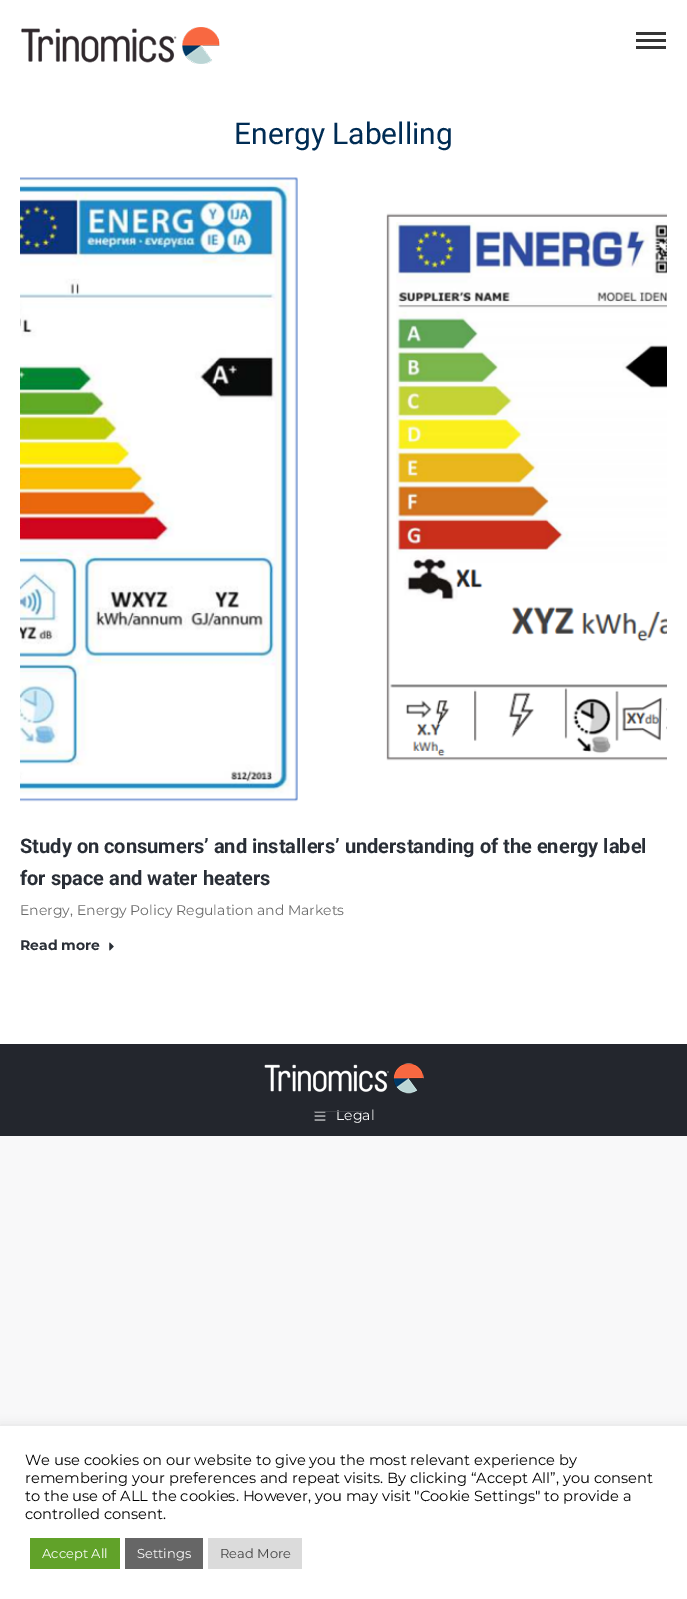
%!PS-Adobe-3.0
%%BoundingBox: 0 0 687 1599
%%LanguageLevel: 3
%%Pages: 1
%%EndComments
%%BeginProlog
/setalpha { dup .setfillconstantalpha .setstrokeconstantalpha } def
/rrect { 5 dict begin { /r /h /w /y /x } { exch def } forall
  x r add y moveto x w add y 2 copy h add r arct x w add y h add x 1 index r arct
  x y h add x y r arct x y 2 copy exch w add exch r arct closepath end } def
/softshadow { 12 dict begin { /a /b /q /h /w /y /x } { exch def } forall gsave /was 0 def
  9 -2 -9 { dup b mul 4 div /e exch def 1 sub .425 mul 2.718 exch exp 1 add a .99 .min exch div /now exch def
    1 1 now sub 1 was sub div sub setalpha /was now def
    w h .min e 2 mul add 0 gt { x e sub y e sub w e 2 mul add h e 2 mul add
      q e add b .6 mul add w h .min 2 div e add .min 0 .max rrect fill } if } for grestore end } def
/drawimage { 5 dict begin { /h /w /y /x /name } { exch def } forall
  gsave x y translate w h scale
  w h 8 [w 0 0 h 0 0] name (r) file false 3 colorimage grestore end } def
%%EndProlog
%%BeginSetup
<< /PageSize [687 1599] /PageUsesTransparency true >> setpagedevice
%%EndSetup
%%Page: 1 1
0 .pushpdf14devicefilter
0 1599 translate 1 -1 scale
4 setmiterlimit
0.973 0.973 0.976 setrgbcolor
0 0 687 1599 rectfill
1 setgray
0 0 687 1044 rectfill
(images/1.raw) 21 27 199 37 drawimage
0.208 setgray
636 32 30 3 rectfill
636 39 30 3 rectfill
636 46 30 3 rectfill
(images/2.raw) 20 177 647 625 drawimage
(images/3.raw) 109 942 5 9 drawimage
0.137 0.149 0.176 setrgbcolor
0 1044 687 92 rectfill
(images/4.raw) 264 1063 160 31 drawimage
(images/5.raw) 314 1111 12 10 drawimage
0.675 0.671 0.671 setrgbcolor
0 1425 687 173 0 5 0.3 softshadow
1 setgray
0 1426 687 173 rectfill
0.38 0.635 0.161 setrgbcolor
30 1538 90 31 rectfill
0.4 setgray
125 1538 78 31 rectfill
0.859 setgray
208 1538 94 31 rectfill
/Roboto-Regular [30 0 0 -30 0 0] selectfont
0 0.173 0.329 setrgbcolor
234 144 moveto (Energy Labelling) show
/Roboto-Bold [20 0 0 -20 0 0] selectfont
0.161 0.18 0.212 setrgbcolor
20 853 moveto (Study on consumers’ and installers’ understanding of the energy label) show
20 885 moveto (for space and water heaters) show
/Montserrat-Regular [14 0 0 -14 0 0] selectfont
0.42 setgray
20 915 moveto (Energy, Energy Policy Regulation and Markets) show
/Montserrat-Bold [14 0 0 -14 0 0] selectfont
0.161 0.18 0.212 setrgbcolor
20 950 moveto (Read more) show
/Montserrat-Regular [14 0 0 -14 0 0] selectfont
1 setgray
336 1120 moveto (Legal) show
/Montserrat-Regular [16 0 0 -16 0 0] selectfont
0.267 0.278 0.302 setrgbcolor
315 1116 moveto (———) show
/Montserrat-Regular [14.65 0 0 -14.65 0 0] selectfont
0 setgray
25 1465 moveto (We use cookies on our website to give you the most relevant experience by) show
25 1483 moveto (remembering your preferences and repeat visits. By clicking “Accept All”, you consent) show
25 1501 moveto (to the use of ALL the cookies. However, you may visit "Cookie Settings" to provide a) show
25 1519 moveto (controlled consent.) show
/Montserrat-Regular [13 0 0 -13 0 0] selectfont
1 setgray
42 1558 moveto (Accept All) show
137 1558 moveto (Settings) show
0.267 setgray
220 1558 moveto (Read More) show
.poppdf14devicefilter showpage
%%EOF
